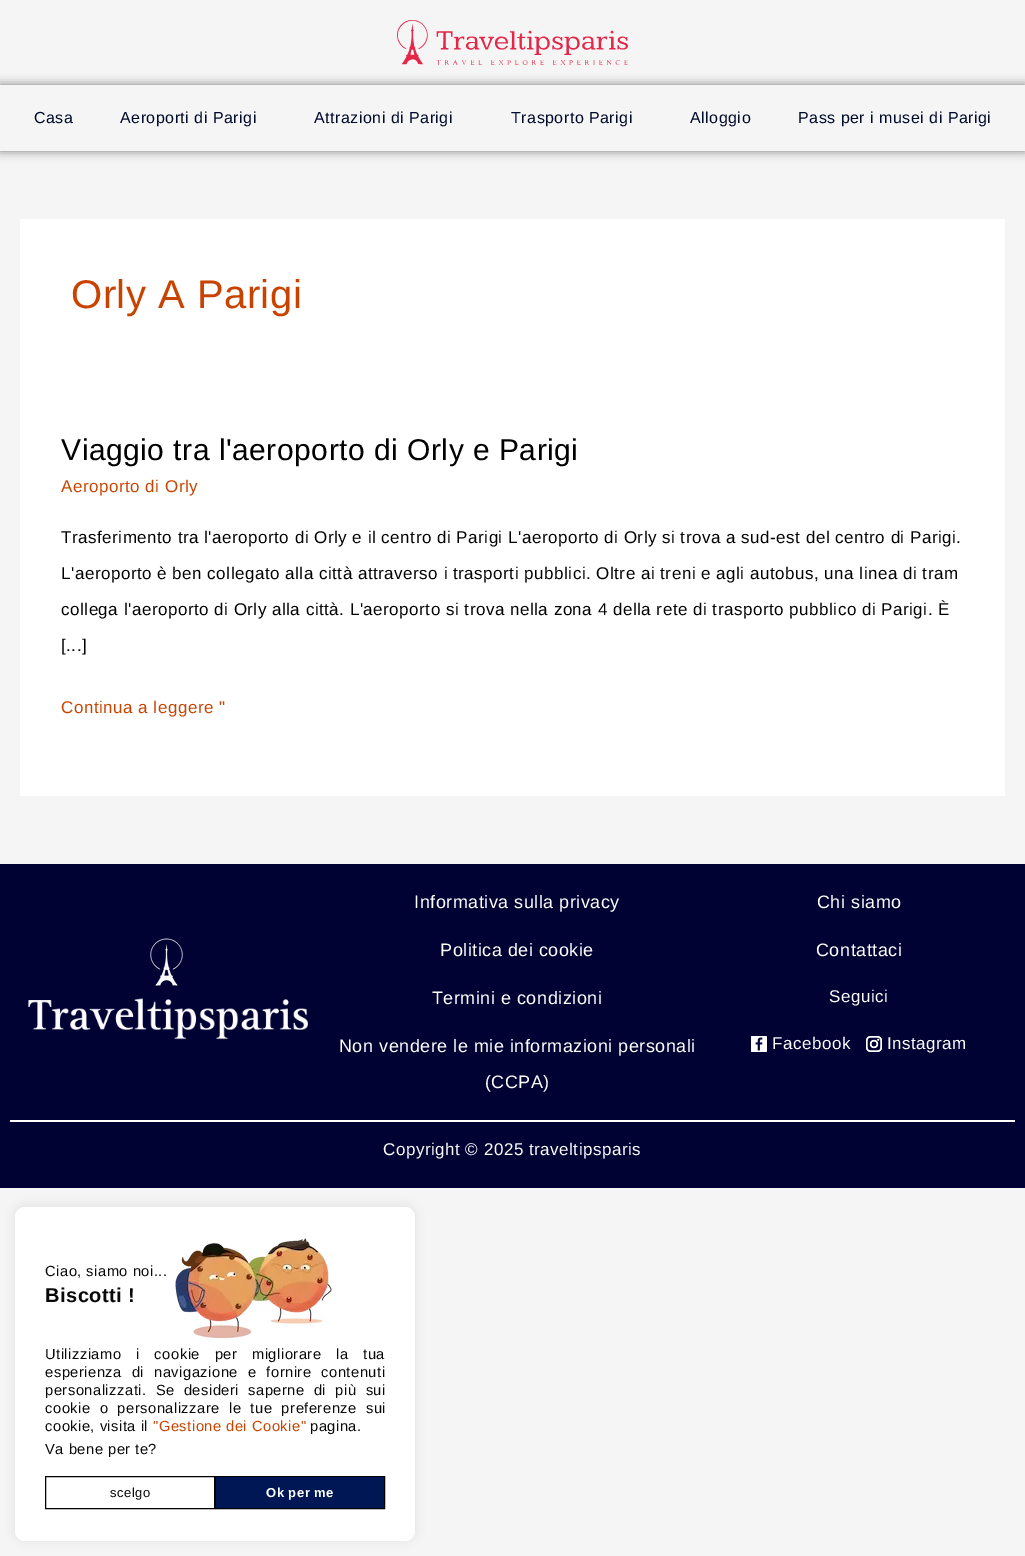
%!PS-Adobe-3.0
%%BoundingBox: 0 0 1025 1556
%%LanguageLevel: 3
%%Pages: 1
%%EndComments
%%BeginProlog
/setalpha { dup .setfillconstantalpha .setstrokeconstantalpha } def
/rrect { 5 dict begin { /r /h /w /y /x } { exch def } forall
  x r add y moveto x w add y 2 copy h add r arct x w add y h add x 1 index r arct
  x y h add x y r arct x y 2 copy exch w add exch r arct closepath end } def
/softshadow { 12 dict begin { /a /b /q /h /w /y /x } { exch def } forall gsave /was 0 def
  9 -2 -9 { dup b mul 4 div /e exch def 1 sub .425 mul 2.718 exch exp 1 add a .99 .min exch div /now exch def
    1 1 now sub 1 was sub div sub setalpha /was now def
    w h .min e 2 mul add 0 gt { x e sub y e sub w e 2 mul add h e 2 mul add
      q e add b .6 mul add w h .min 2 div e add .min 0 .max rrect fill } if } for grestore end } def
/drawimage { 5 dict begin { /h /w /y /x /name } { exch def } forall
  gsave x y translate w h scale
  w h 8 [w 0 0 h 0 0] name (r) file false 3 colorimage grestore end } def
%%EndProlog
%%BeginSetup
<< /PageSize [1025 1556] /PageUsesTransparency true >> setpagedevice
%%EndSetup
%%Page: 1 1
0 .pushpdf14devicefilter
0 1556 translate 1 -1 scale
4 setmiterlimit
0.961 setgray
0 0 1025 1556 rectfill
(images/1.raw) 397 20 231 45 drawimage
gsave
newpath 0 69 moveto 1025 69 lineto 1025 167 lineto 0 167 lineto closepath 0 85 moveto 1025 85 lineto 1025 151 lineto 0 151 lineto closepath eoclip newpath
0 setgray
0 85 1025 66 0 5 0.5 softshadow
grestore
1 setgray
20 219 985 577 rectfill
0 0.008 0.2 setrgbcolor
0 864 1025 324 rectfill
(images/2.raw) 150 938 33 48 drawimage
(images/3.raw) 27 998 281 42 drawimage
(images/4.raw) 751 1036 16 16 drawimage
(images/5.raw) 866 1036 16 16 drawimage
1 setgray
10 1120 1005 2 rectfill
0.675 0.671 0.671 setrgbcolor
15 1206 400 334 10 5 0.3 softshadow
1 setgray
15 1207 400 334 10 rrect fill
(images/6.raw) 175 1238 157 101 drawimage
0 setgray
45.5 1476.5 169 32 rectstroke
215.5 1476.5 169 32 rectstroke
0 0.09 0.337 setrgbcolor
216 1477 168 31 rectfill
/LiberationSans-Regular [16 0 0 -16 0 0] selectfont
0 0.039 0.169 setrgbcolor
34 123 moveto 0.5 0 (Casa) ashow
120 123 moveto 0.5 0 (Aeroporti di Parigi) ashow
314 123 moveto 0.5 0 (Attrazioni di Parigi) ashow
511 123 moveto 0.5 0 (Trasporto Parigi) ashow
690 123 moveto 0.5 0 (Alloggio) ashow
798 123 moveto 0.5 0 (Pass per i musei di Parigi) ashow
/LiberationSans-Regular [40 0 0 -40 0 0] selectfont
0.784 0.263 0 setrgbcolor
71 308 moveto 0.5 0 (Orly A Parigi) ashow
/LiberationSans-Regular [30 0 0 -30 0 0] selectfont
0 setgray
61 460 moveto 0.5 0 (Viaggio tra l'aeroporto di Orly e Parigi) ashow
/LiberationSans-Regular [17 0 0 -17 0 0] selectfont
0.784 0.263 0 setrgbcolor
61 492 moveto 0.5 0 (Aeroporto di Orly) ashow
0 setgray
61 543 moveto 0.5 0 (Trasferimento tra l'aeroporto di Orly e il centro di Parigi L'aeroporto di Orly si trova a sud-est del centro di Parigi.) ashow
61 579 moveto 0.5 0 (L'aeroporto è ben collegato alla città attraverso i trasporti pubblici. Oltre ai treni e agli autobus, una linea di tram) ashow
61 615 moveto 0.5 0 (collega l'aeroporto di Orly alla città. L'aeroporto si trova nella zona 4 della rete di trasporto pubblico di Parigi. È) ashow
61 651 moveto 0.5 0 ([...]) ashow
0.784 0.263 0 setrgbcolor
61 713 moveto 0.5 0 (Continua a leggere ") ashow
/LiberationSans-Regular [18 0 0 -18 0 0] selectfont
1 setgray
414 908 moveto 0.5 0 (Informativa sulla privacy) ashow
440 956 moveto 0.5 0 (Politica dei cookie) ashow
432 1004 moveto 0.5 0 (Termini e condizioni) ashow
339 1052 moveto 0.5 0 (Non vendere le mie informazioni personali) ashow
485 1088 moveto 0.5 0 (\(CCPA\)) ashow
817 908 moveto 0.5 0 (Chi siamo) ashow
816 956 moveto 0.5 0 (Contattaci) ashow
/LiberationSans-Regular [17 0 0 -17 0 0] selectfont
829 1002 moveto 0.5 0 (Seguici) ashow
772 1049 moveto 0.5 0 (Facebook) ashow
887 1049 moveto 0.5 0 (Instagram) ashow
383 1155 moveto 0.5 0 (Copyright © 2025 traveltipsparis) ashow
/LiberationSans-Regular [14.7 0 0 -14.7 0 0] selectfont
0.039 0.035 0.035 setrgbcolor
45 1276 moveto 0.5 0 (Ciao, siamo noi...) ashow
/LiberationSans-Bold [20 0 0 -20 0 0] selectfont
45 1302 moveto 0.5 0 (Biscotti !) ashow
/LiberationSans-Regular [14.7 0 0 -14.7 0 0] selectfont
45 1359 moveto 10 0 32 0.5 0 (Utilizziamo i cookie per migliorare la tua) awidthshow
45 1377 moveto 5.25 0 32 0.5 0 (esperienza di navigazione e fornire contenuti) awidthshow
45 1395 moveto 4.5 0 32 0.5 0 (personalizzati. Se desideri saperne di più sui) awidthshow
45 1413 moveto 4.5 0 32 0.5 0 (cookie o personalizzare le tue preferenze sui) awidthshow
45 1431 moveto 0.5 0 (cookie, visita il) ashow
0.784 0.263 0 setrgbcolor
153 1431 moveto 0.5 0 ("Gestione dei Cookie") ashow
0.039 0.035 0.035 setrgbcolor
310 1431 moveto 0.5 0 (pagina.) ashow
45 1454 moveto 0.5 0 (Va bene per te?) ashow
/LiberationSans-Regular [13 0 0 -13 0 0] selectfont
110 1497 moveto 0.5 0 (scelgo) ashow
/LiberationSans-Bold [13 0 0 -13 0 0] selectfont
1 setgray
266 1497 moveto 0.5 0 (Ok per me) ashow
.poppdf14devicefilter showpage
%%EOF
